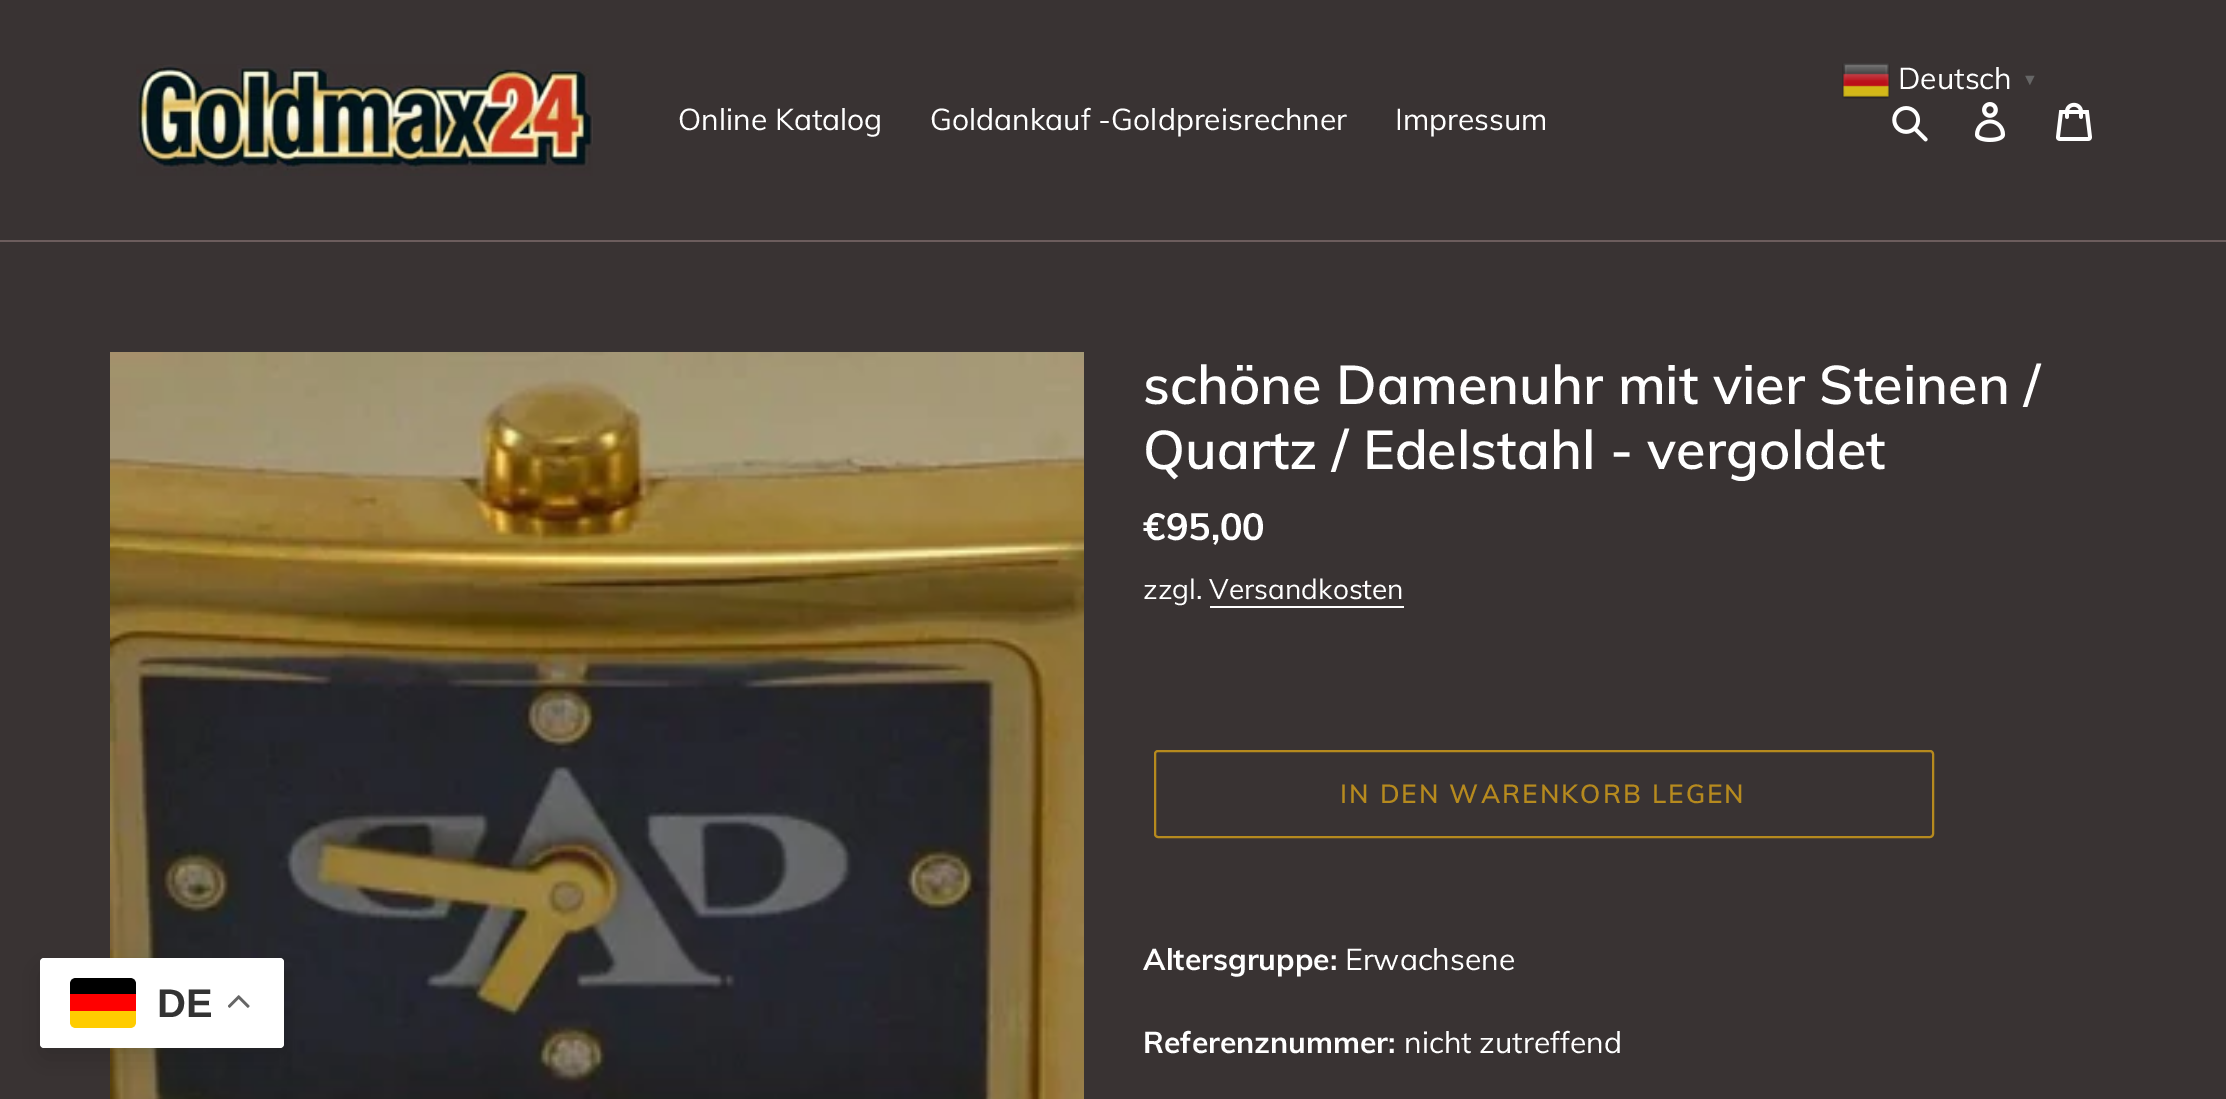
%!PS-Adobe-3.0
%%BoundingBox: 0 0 2226 1099
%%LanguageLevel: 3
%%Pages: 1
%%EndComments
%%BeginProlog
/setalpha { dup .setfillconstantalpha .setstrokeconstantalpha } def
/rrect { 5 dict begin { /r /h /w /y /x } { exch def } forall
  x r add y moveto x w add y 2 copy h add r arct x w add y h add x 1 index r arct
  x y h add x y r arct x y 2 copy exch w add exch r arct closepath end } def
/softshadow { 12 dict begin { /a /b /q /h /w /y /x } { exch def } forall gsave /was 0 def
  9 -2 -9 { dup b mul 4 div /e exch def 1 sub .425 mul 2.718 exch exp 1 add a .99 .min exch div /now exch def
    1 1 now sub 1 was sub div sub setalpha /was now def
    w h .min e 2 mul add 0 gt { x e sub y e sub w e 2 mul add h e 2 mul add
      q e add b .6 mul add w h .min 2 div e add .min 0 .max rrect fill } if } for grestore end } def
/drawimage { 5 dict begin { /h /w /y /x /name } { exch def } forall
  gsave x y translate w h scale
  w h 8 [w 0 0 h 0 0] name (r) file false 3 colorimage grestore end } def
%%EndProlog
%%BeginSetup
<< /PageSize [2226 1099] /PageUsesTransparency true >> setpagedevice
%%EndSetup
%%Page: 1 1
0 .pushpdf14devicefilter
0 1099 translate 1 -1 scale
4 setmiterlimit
0.224 0.2 0.2 setrgbcolor
0 0 2226 1099 rectfill
(images/1.raw) 1842 63 48 36 drawimage
0.424 0.365 0.365 setrgbcolor
0 240 2226 2 rectfill
(images/2.raw) 136 64 457 112 drawimage
(images/3.raw) 1892 106 36 36 drawimage
(images/4.raw) 1975 102 31 40 drawimage
(images/5.raw) 2056 102 36 39 drawimage
(images/7.raw) 110 352 974 747 drawimage
0 setgray
40 968 244 90 4 15 0.15 softshadow
1 setgray
40 958 244 90 4 rrect fill
1 0.8 0 setrgbcolor
newpath 70 1011 moveto 136 1011 lineto 136 1022 lineto 136 1025.5 133.5 1028 130 1028 curveto 76 1028 lineto 72.5 1028 70 1025.5 70 1022 curveto closepath fill
0 setgray
newpath 76 978 moveto 130 978 lineto 133.5 978 136 980.5 136 984 curveto 136 994 lineto 70 994 lineto 70 984 lineto 70 980.5 72.5 978 76 978 curveto closepath fill
1 0 0 setrgbcolor
70 994 66 17 rectfill
(images/6.raw) 228 995 22 13 drawimage
1 setgray
1210 606 194 2 rectfill
0.714 0.541 0.118 setrgbcolor
2 setlinewidth
1155 751 778 86 3 rrect stroke
/Muli-Regular [30 0 0 -30 0 0] selectfont
1 setgray
1898 89 moveto (Deutsch) show
/LiberationSans-Bold [16 0 0 -16 0 0] selectfont
0.4 setgray
2022 85 moveto (▼) show
/Muli-Regular [30 0 0 -30 0 0] selectfont
1 setgray
678 130 moveto (Online Katalog) show
930 130 moveto (Goldankauf -Goldpreisrechner) show
1395 130 moveto (Impressum) show
/LiberationSans-Bold [40 0 0 -40 0 0] selectfont
0.2 setgray
157 1017 moveto (DE) show
/Muli-SemiBold [54 0 0 -54 0 0] selectfont
1 setgray
1143 404 moveto (schöne Damenuhr mit vier Steinen /) show
1143 469 moveto (Quartz / Edelstahl - vergoldet) show
/Muli-Bold [37.5 0 0 -37.5 0 0] selectfont
1143 540 moveto (€95,00) show
/Muli-Regular [28 0 0 -28 0 0] selectfont
1143 599 moveto (zzgl. Versandkosten) show
/Muli-SemiBold [26 0 0 -26 0 0] selectfont
0.714 0.541 0.118 setrgbcolor
1340 803 moveto 2.1 0 (IN DEN WARENKORB LEGEN) ashow
/Muli-Bold [30 0 0 -30 0 0] selectfont
1 setgray
1143 970 moveto (Altersgruppe:) show
/Muli-Regular [30 0 0 -30 0 0] selectfont
1345 970 moveto (Erwachsene) show
/Muli-Bold [30 0 0 -30 0 0] selectfont
1143 1053 moveto (Referenznummer:) show
/Muli-Regular [30 0 0 -30 0 0] selectfont
1404 1053 moveto (nicht zutreffend) show
.poppdf14devicefilter showpage
%%EOF
